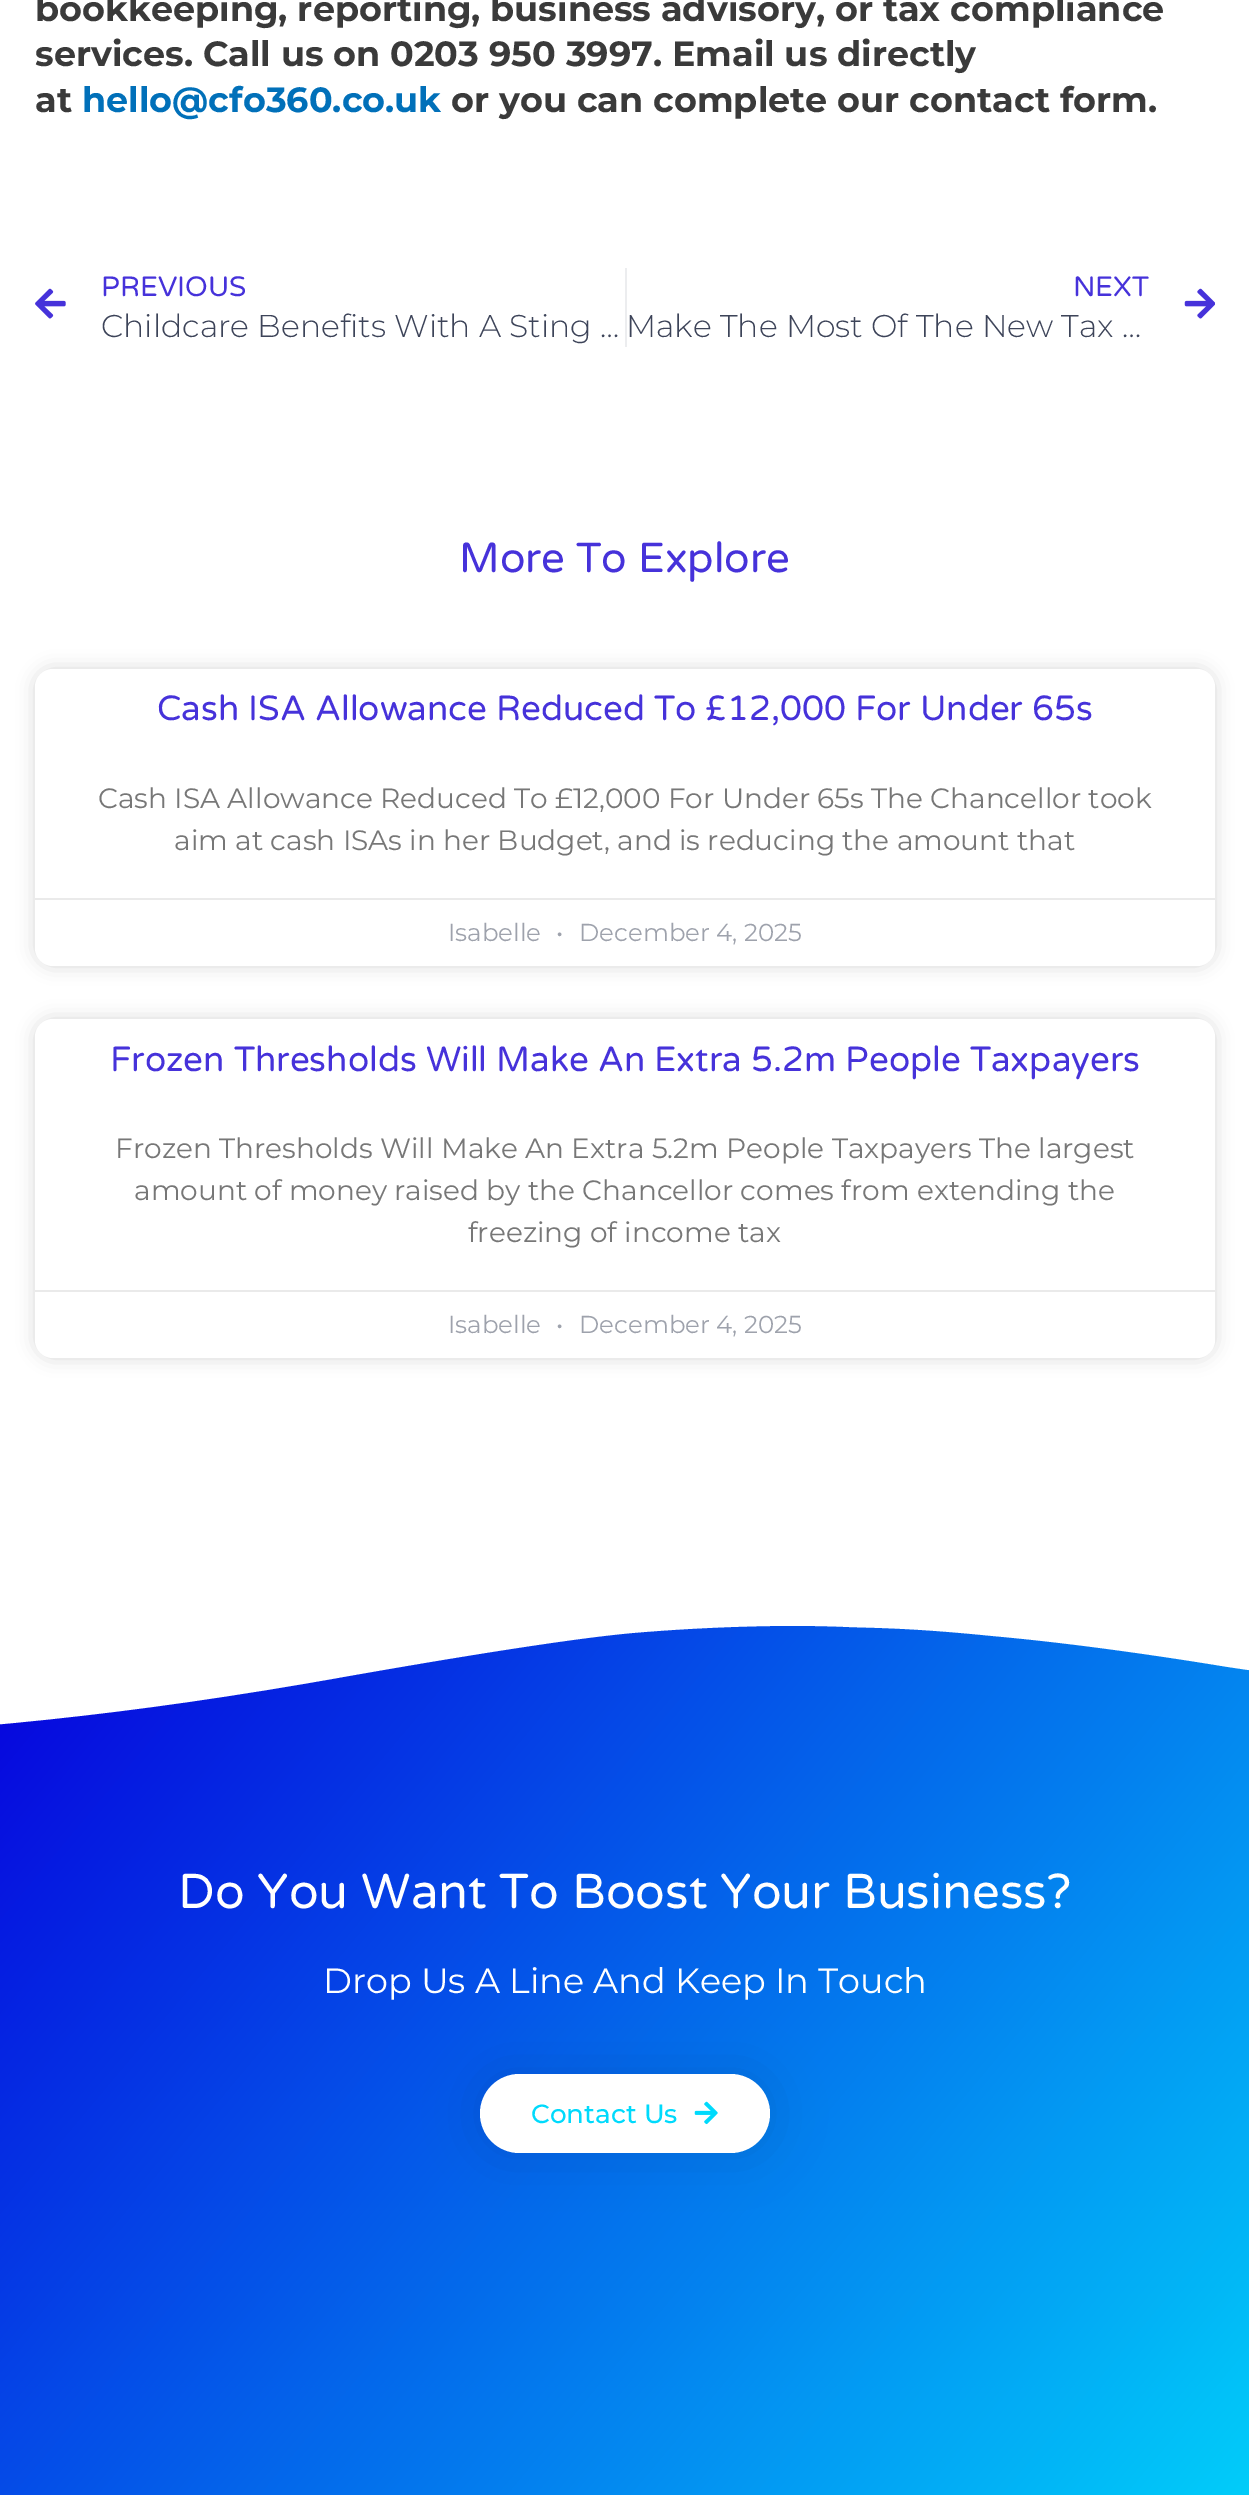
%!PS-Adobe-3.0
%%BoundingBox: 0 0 1249 2495
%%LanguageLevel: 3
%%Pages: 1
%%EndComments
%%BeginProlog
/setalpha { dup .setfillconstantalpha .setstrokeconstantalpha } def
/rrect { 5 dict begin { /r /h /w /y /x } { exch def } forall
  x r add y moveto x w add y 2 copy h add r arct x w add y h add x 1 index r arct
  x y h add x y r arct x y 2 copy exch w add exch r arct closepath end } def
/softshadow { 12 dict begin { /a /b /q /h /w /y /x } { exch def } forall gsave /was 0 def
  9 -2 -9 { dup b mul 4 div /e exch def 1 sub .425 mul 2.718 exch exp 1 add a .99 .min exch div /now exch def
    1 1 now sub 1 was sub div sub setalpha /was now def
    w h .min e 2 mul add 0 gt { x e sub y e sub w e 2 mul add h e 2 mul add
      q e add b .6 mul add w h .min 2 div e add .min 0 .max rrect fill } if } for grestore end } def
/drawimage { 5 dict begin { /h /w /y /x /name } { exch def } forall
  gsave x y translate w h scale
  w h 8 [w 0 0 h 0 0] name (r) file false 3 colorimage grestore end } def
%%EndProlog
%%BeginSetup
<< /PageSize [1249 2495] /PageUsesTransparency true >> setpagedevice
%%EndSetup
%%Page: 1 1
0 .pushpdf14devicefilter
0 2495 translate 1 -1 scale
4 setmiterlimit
1 setgray
0 0 1249 2495 rectfill
(images/1.raw) 35 288 31 31 drawimage
0.925 0.929 0.937 setrgbcolor
625 268 2 79 rectfill
(images/2.raw) 1184 288 31 31 drawimage
0 setgray
35 669 1180 297 18 9 0.15 softshadow
1 setgray
35 669 1180 297 18 rrect fill
0.918 setgray
35 898 1180 2 rectfill
0 setgray
35 1019 1180 339 18 9 0.15 softshadow
1 setgray
35 1019 1180 339 18 rrect fill
0.918 setgray
35 1290 1180 2 rectfill
gsave newpath 0 1625 moveto 1249 1625 lineto 1249 2495 lineto 0 2495 lineto closepath clip newpath
<< /ShadingType 2 /ColorSpace /DeviceRGB /Coords [-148 1797 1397 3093] /Extend [true true] /Function << /FunctionType 3 /Domain [0 1] /Functions [<< /FunctionType 2 /Domain [0 1] /C0 [0.027 0 0.867] /C1 [0 0.949 1] /N 1 >> << /FunctionType 2 /Domain [0 1] /C0 [0 0.949 1] /C1 [0 0.949 1] /N 1 >>] /Bounds [0.89] /Encode [0 1 0 1] >> >> shfill grestore
1 setgray
newpath 849 1627 moveto 784 1624 701 1627 632 1633 curveto 564 1639 428 1662 343 1677 curveto 125 1716 -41 1731 -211 1738 curveto -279 1740 -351 1742 -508 1735 curveto -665 1727 -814 1703 -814 1703 curveto -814 1619 lineto 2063 1619 lineto 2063 1656 lineto 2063 1656 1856 1696 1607 1693 curveto 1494 1692 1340 1685 1222 1666 curveto 1161 1656 1072 1643 993 1636 curveto 914 1628 879 1628 849 1627 curveto closepath fill
0 setgray
480 2074 290 79 39.5 26 0.1 softshadow
1 setgray
480 2074 290 79 39.5 rrect fill
(images/3.raw) 694 2101 24 24 drawimage
/Montserrat-Bold [35 0 0 -35 0 0] selectfont
0.227 setgray
35 21 moveto (bookkeeping, reporting, business advisory, or tax compliance) show
35 66 moveto (services. Call us on 0203 950 3997. Email us directly) show
35 112 moveto (at) show
0.004 0.439 0.725 setrgbcolor
82 112 moveto (hello@cfo360.co.uk) show
0.227 setgray
451 112 moveto (or you can complete our contact form.) show
/VarelaRound-Regular [28 0 0 -28 0 0] selectfont
0.275 0.196 0.855 setrgbcolor
101 296 moveto (PREVIOUS) show
/Montserrat-Light [31.5 0 0 -31.5 0 0] selectfont
0.239 0.267 0.349 setrgbcolor
101 337 moveto (Childcare Benefits With A Sting …) show
/VarelaRound-Regular [28 0 0 -28 0 0] selectfont
0.275 0.196 0.855 setrgbcolor
1073 296 moveto (NEXT) show
/Montserrat-Light [31.5 0 0 -31.5 0 0] selectfont
0.239 0.267 0.349 setrgbcolor
626 337 moveto (Make The Most Of The New Tax …) show
/VarelaRound-Regular [42 0 0 -42 0 0] selectfont
0.275 0.196 0.855 setrgbcolor
459 572 moveto (More To Explore) show
/VarelaRound-Regular [35 0 0 -35 0 0] selectfont
157 720 moveto (Cash ISA Allowance Reduced To £12,000 For Under 65s) show
/Montserrat-Regular [28 0 0 -28 0 0] selectfont
0.467 setgray
98 808 moveto (Cash ISA Allowance Reduced To £12,000 For Under 65s The Chancellor took) show
174 850 moveto (aim at cash ISAs in her Budget, and is reducing the amount that) show
/Montserrat-Regular [24.5 0 0 -24.5 0 0] selectfont
0.62 0.635 0.675 setrgbcolor
448 941 moveto (Isabelle) show
556 941 moveto (•) show
579 941 moveto (December 4, 2025) show
/VarelaRound-Regular [35 0 0 -35 0 0] selectfont
0.275 0.196 0.855 setrgbcolor
110 1071 moveto (Frozen Thresholds Will Make An Extra 5.2m People Taxpayers) show
/Montserrat-Regular [28 0 0 -28 0 0] selectfont
0.467 setgray
115 1158 moveto (Frozen Thresholds Will Make An Extra 5.2m People Taxpayers The largest) show
134 1200 moveto (amount of money raised by the Chancellor comes from extending the) show
468 1242 moveto (freezing of income tax) show
/Montserrat-Regular [24.5 0 0 -24.5 0 0] selectfont
0.62 0.635 0.675 setrgbcolor
448 1333 moveto (Isabelle) show
556 1333 moveto (•) show
579 1333 moveto (December 4, 2025) show
/VarelaRound-Regular [49 0 0 -49 0 0] selectfont
1 setgray
178 1908 moveto (Do You Want To Boost Your Business?) show
/Montserrat-Regular [35 0 0 -35 0 0] selectfont
323 1993 moveto (Drop Us A Line And Keep In Touch) show
/Montserrat-Medium [26.25 0 0 -26.25 0 0] selectfont
0 0.855 0.988 setrgbcolor
531 2123 moveto (Contact Us) show
.poppdf14devicefilter showpage
%%EOF
